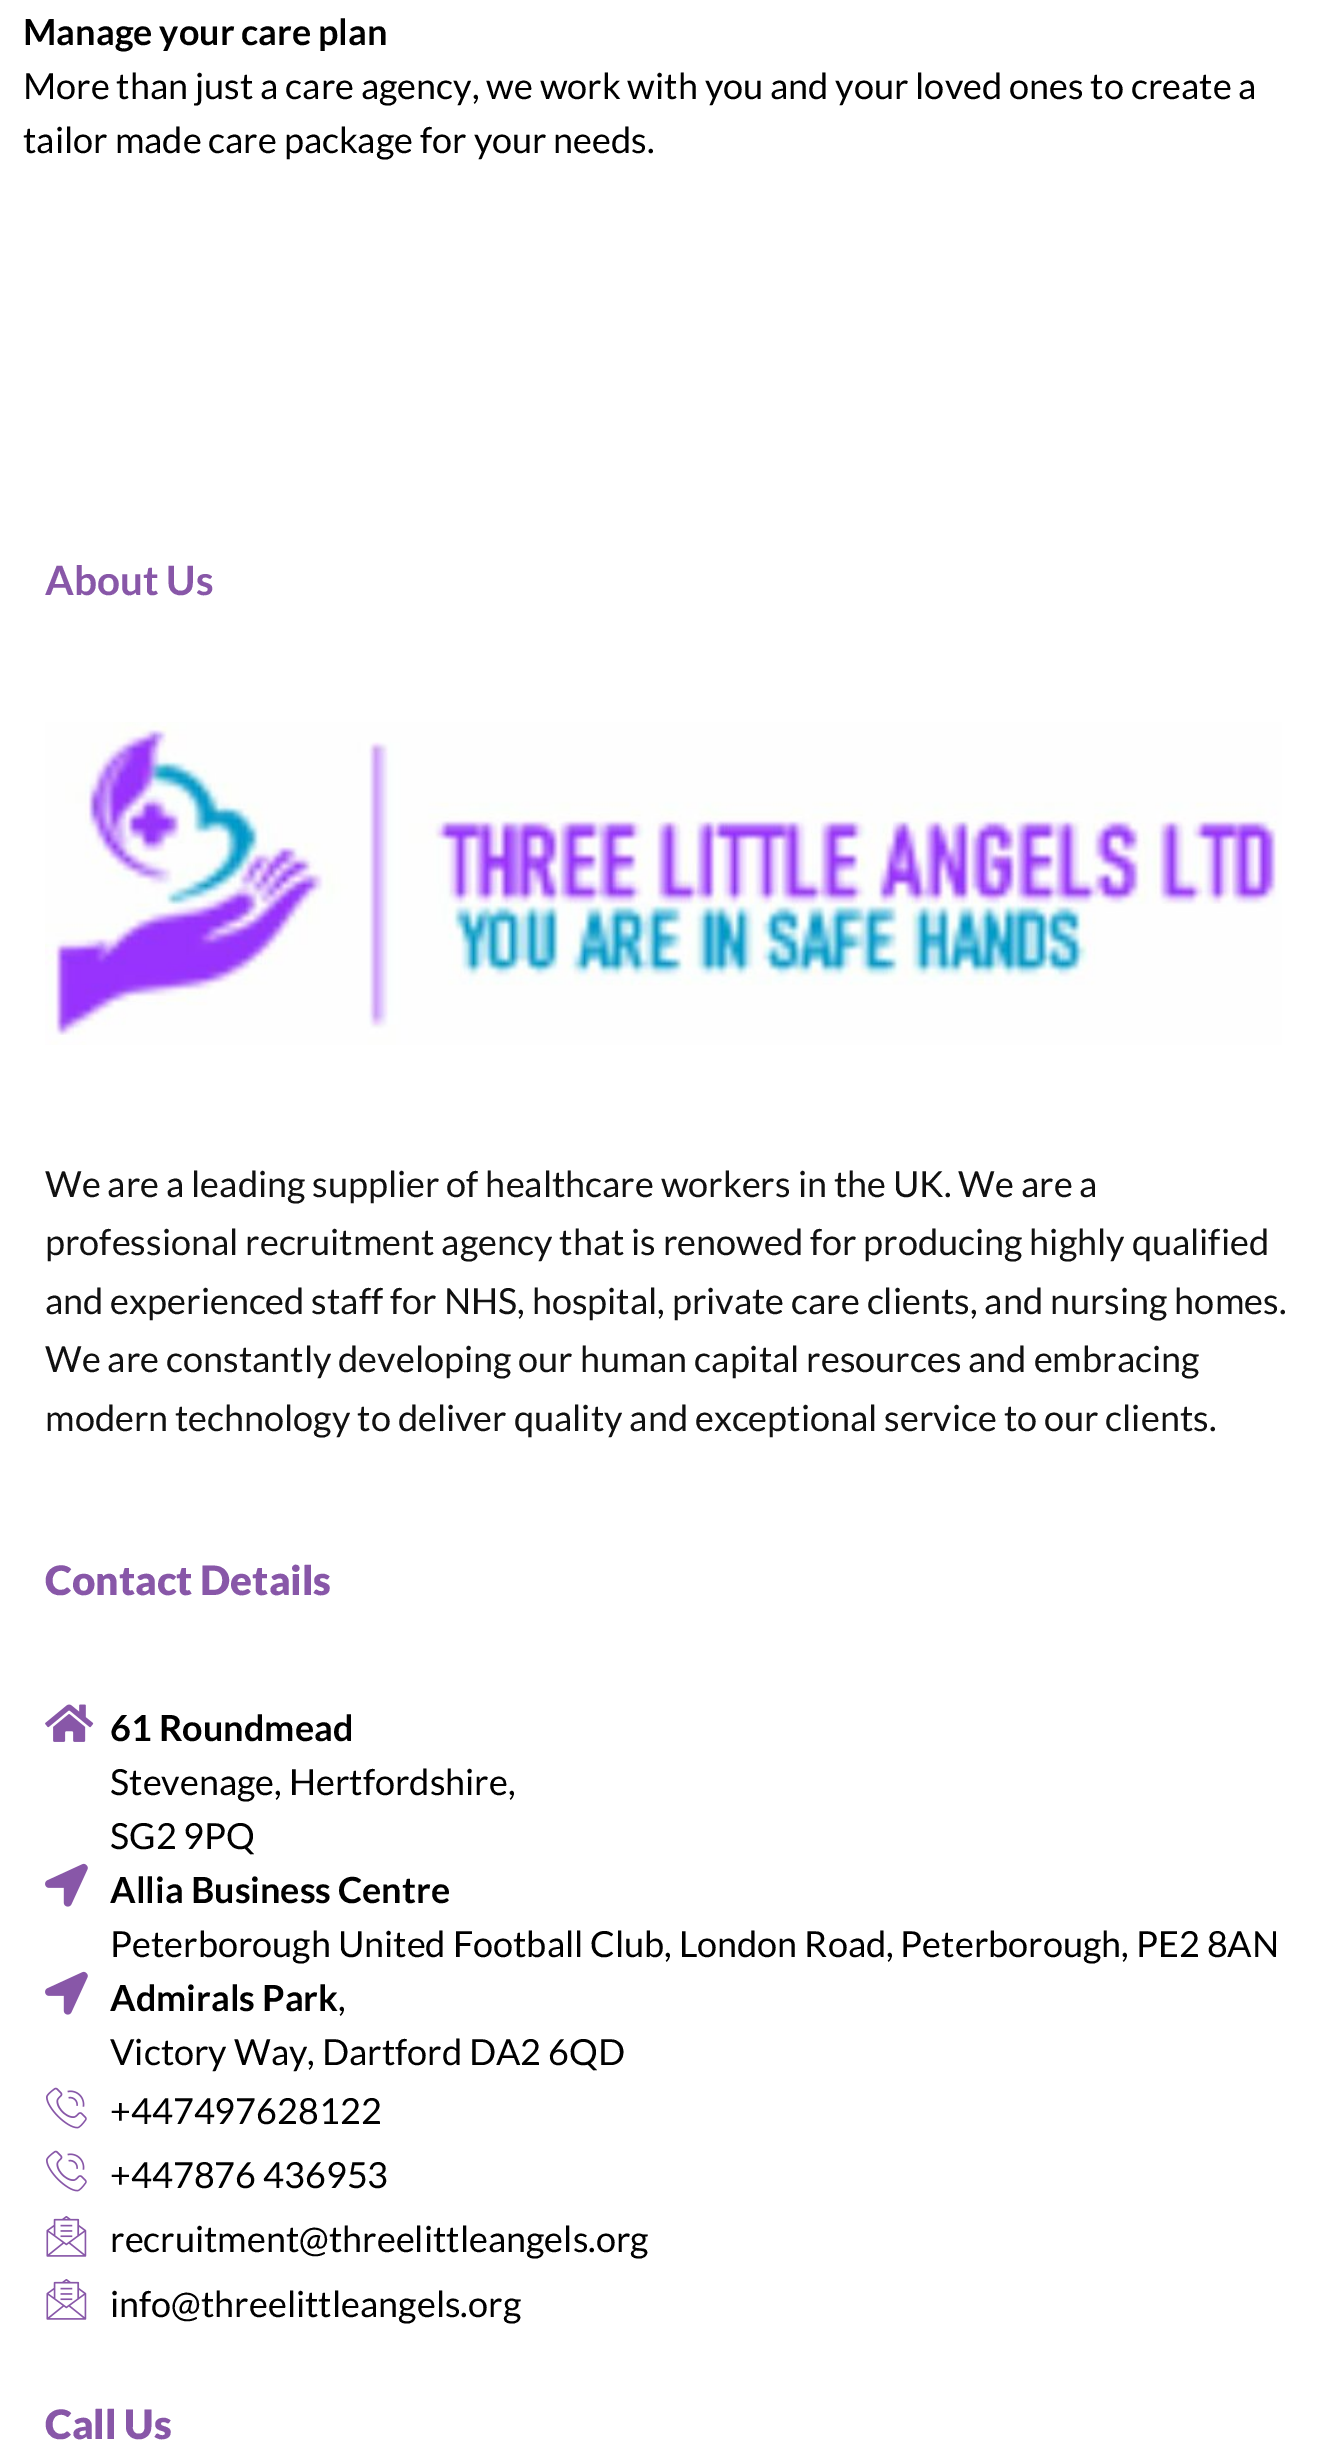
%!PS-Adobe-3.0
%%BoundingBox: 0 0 1333 2442
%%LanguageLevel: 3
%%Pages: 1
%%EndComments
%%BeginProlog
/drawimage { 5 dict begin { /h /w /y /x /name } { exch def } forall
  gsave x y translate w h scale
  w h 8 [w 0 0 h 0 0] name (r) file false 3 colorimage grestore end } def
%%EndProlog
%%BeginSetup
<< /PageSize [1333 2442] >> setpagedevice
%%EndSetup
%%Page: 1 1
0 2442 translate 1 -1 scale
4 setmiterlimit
1 setgray
0 0 1333 2442 rectfill
(images/1.raw) 45 722 1237 323 drawimage
(images/2.raw) 45 1704 49 38 drawimage
(images/3.raw) 45 1863 43 44 drawimage
(images/3.raw) 45 1971 43 44 drawimage
(images/4.raw) 46 2087 41 42 drawimage
(images/4.raw) 46 2150 41 42 drawimage
(images/5.raw) 46 2216 41 41 drawimage
(images/5.raw) 46 2279 41 41 drawimage
/Lato-Bold [36 0 0 -36 0 0] selectfont
0 setgray
23 45 moveto (Manage your care plan) show
/Lato-Regular [36 0 0 -36 0 0] selectfont
23 99 moveto (More than just a care agency, we work with you and your loved ones to create a) show
23 153 moveto (tailor made care package for your needs.) show
/Lato-Bold [40.5 0 0 -40.5 0 0] selectfont
0.533 0.341 0.659 setrgbcolor
45 595 moveto (About Us) show
/Lato-Regular [36 0 0 -36 0 0] selectfont
0.067 setgray
45 1197 moveto (We are a leading supplier of healthcare workers in the UK. We are a) show
45 1255 moveto (professional recruitment agency that is renowed for producing highly qualified) show
45 1314 moveto (and experienced staff for NHS, hospital, private care clients, and nursing homes.) show
45 1372 moveto (We are constantly developing our human capital resources and embracing) show
45 1431 moveto (modern technology to deliver quality and exceptional service to our clients.) show
/Lato-Black [40.5 0 0 -40.5 0 0] selectfont
0.533 0.341 0.659 setrgbcolor
45 1595 moveto (Contact Details) show
/Lato-Bold [36 0 0 -36 0 0] selectfont
0 setgray
110 1741 moveto (61 Roundmead) show
/Lato-Regular [36 0 0 -36 0 0] selectfont
110 1795 moveto (Stevenage, Hertfordshire,) show
110 1849 moveto (SG2 9PQ) show
/Lato-Bold [36 0 0 -36 0 0] selectfont
110 1903 moveto (Allia Business Centre) show
/Lato-Regular [36 0 0 -36 0 0] selectfont
110 1957 moveto (Peterborough United Football Club, London Road, Peterborough, PE2 8AN) show
/Lato-Bold [36 0 0 -36 0 0] selectfont
110 2011 moveto (Admirals Park) show
/Lato-Regular [36 0 0 -36 0 0] selectfont
338 2011 moveto (,) show
110 2065 moveto (Victory Way, Dartford DA2 6QD) show
110 2124 moveto (+447497628122) show
110 2188 moveto (+447876 436953) show
110 2252 moveto (recruitment@threelittleangels.org) show
110 2317 moveto (info@threelittleangels.org) show
/Lato-Black [40.5 0 0 -40.5 0 0] selectfont
0.533 0.341 0.659 setrgbcolor
45 2439 moveto (Call Us) show
showpage
%%EOF
